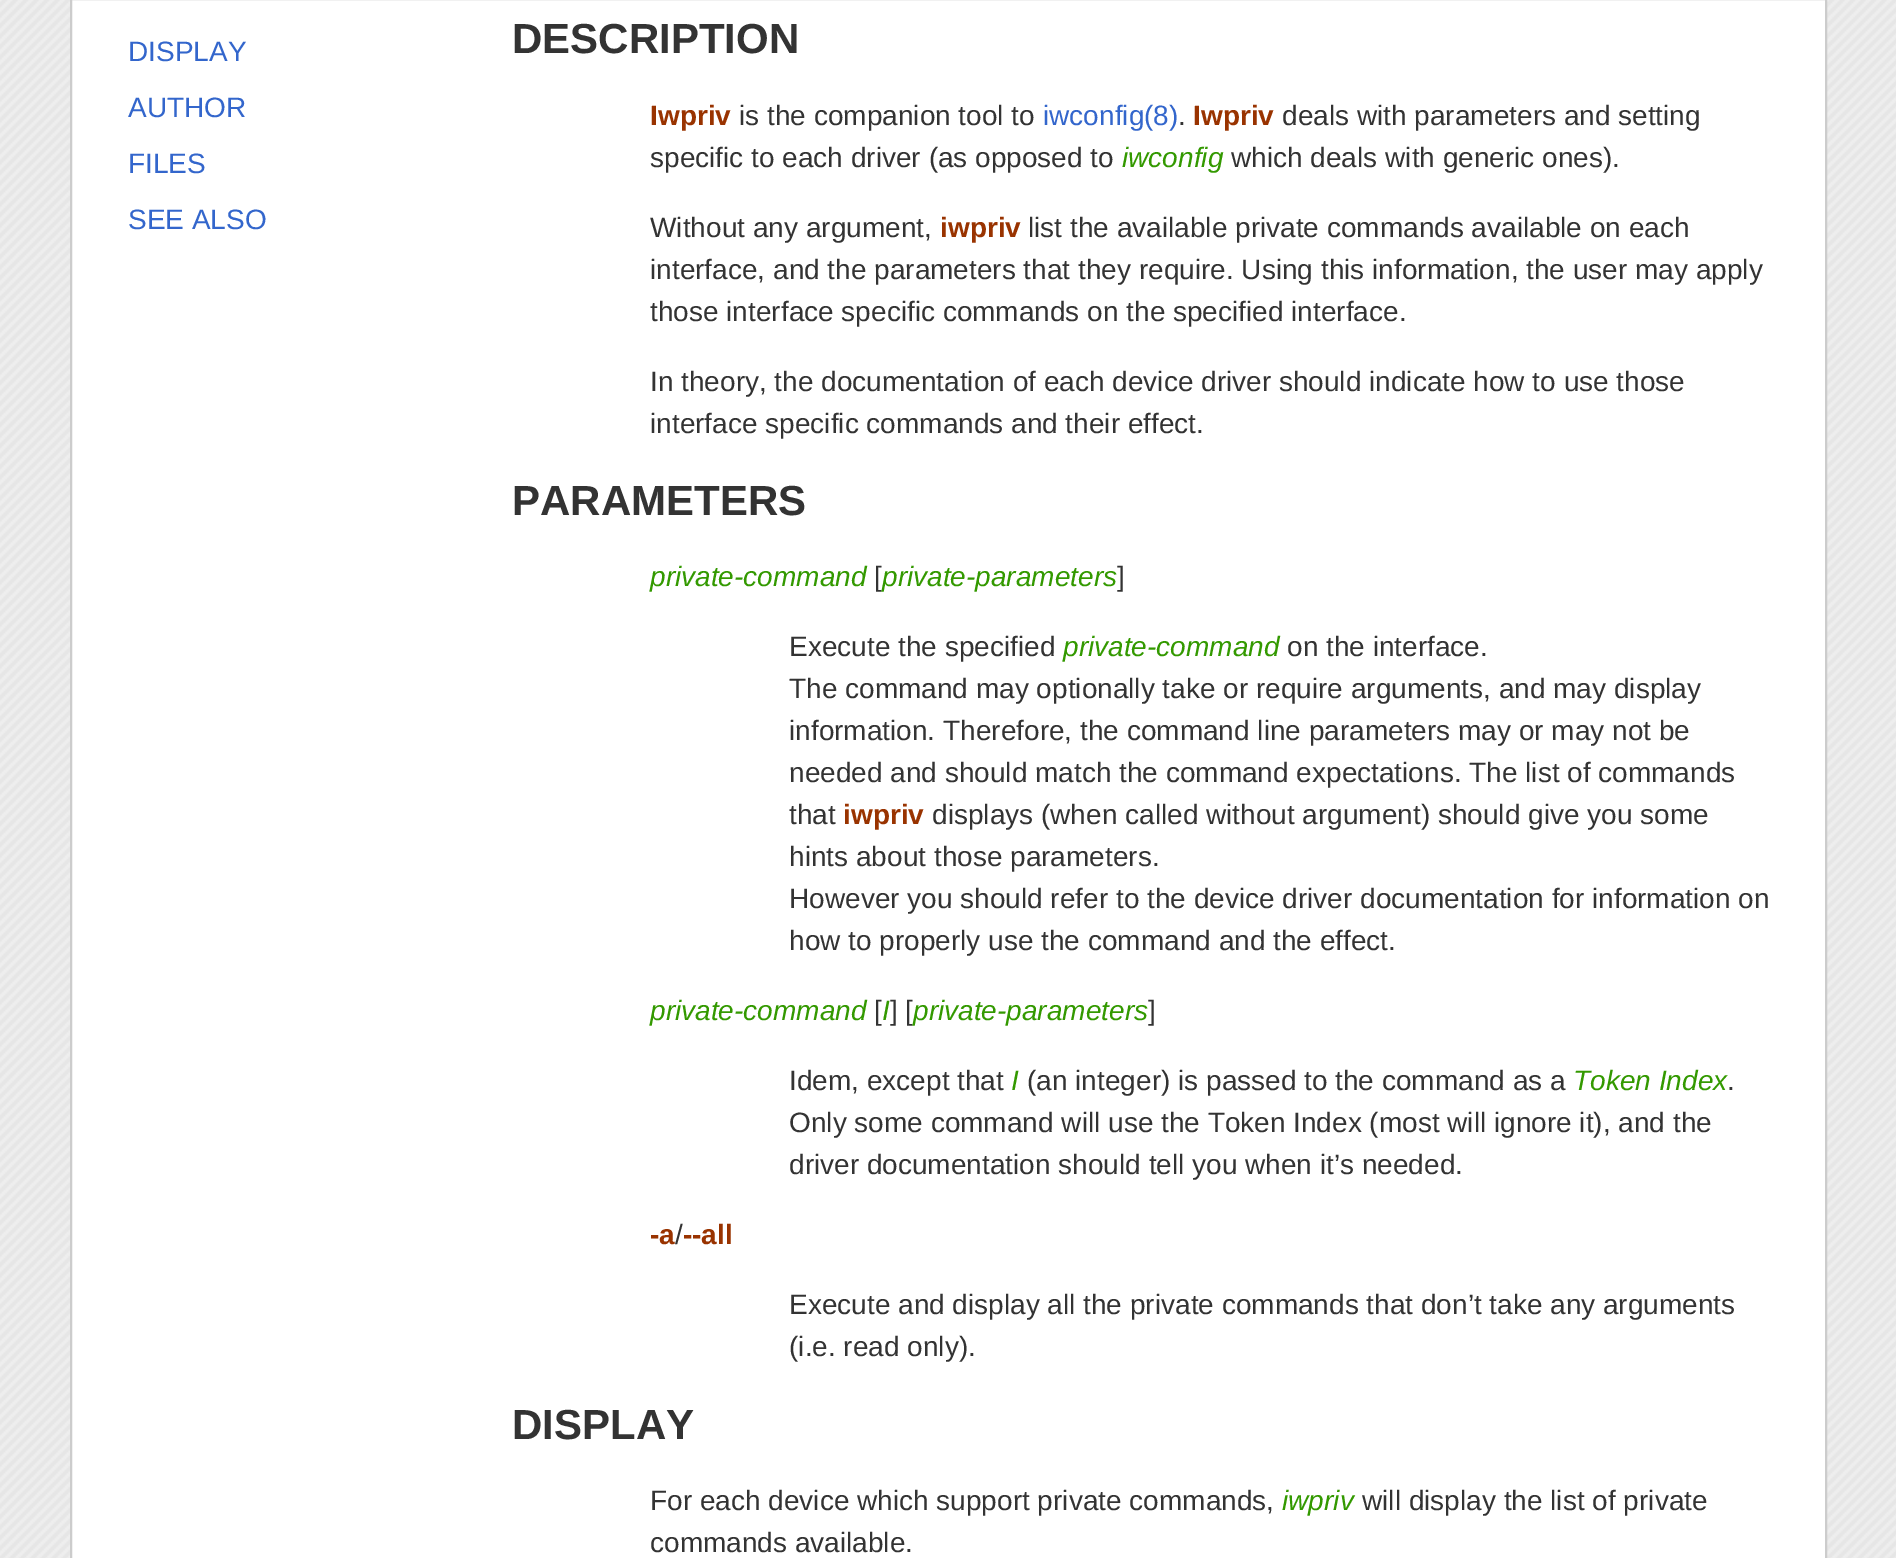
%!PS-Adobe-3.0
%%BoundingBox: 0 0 1896 1558
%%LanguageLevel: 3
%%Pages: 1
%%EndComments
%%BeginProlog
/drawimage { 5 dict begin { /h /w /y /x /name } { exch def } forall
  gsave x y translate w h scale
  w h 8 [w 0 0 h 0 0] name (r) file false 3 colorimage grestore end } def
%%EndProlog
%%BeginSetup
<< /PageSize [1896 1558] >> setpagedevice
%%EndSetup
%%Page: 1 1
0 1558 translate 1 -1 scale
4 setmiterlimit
1 setgray
0 0 1896 1558 rectfill
(images/1.raw) 0 0 1896 1558 drawimage
newpath 71 -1 moveto 1826 -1 lineto 1826 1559 lineto 71 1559 lineto closepath gsave fill grestore
0.8 setgray
2 setlinewidth
stroke
/LiberationSans-Regular [28 0 0 -28 0 0] selectfont
0.2 0.4 0.8 setrgbcolor
128 61 moveto (DISPLAY) show
128 117 moveto (AUTHOR) show
128 173 moveto (FILES) show
128 229 moveto (SEE ALSO) show
/LiberationSans-Bold [42 0 0 -42 0 0] selectfont
0.2 setgray
512 53 moveto (DESCRIPTION) show
/LiberationSans-Bold [28 0 0 -28 0 0] selectfont
0.6 0.2 0 setrgbcolor
650 125 moveto (Iwpriv) show
/LiberationSans-Regular [28 0 0 -28 0 0] selectfont
0.2 setgray
739 125 moveto (is the companion tool to) show
0.2 0.4 0.8 setrgbcolor
1043 125 moveto (iwconfig\(8\)) show
0.2 setgray
1178 125 moveto (.) show
/LiberationSans-Bold [28 0 0 -28 0 0] selectfont
0.6 0.2 0 setrgbcolor
1193 125 moveto (Iwpriv) show
/LiberationSans-Regular [28 0 0 -28 0 0] selectfont
0.2 setgray
1282 125 moveto (deals with parameters and setting) show
650 167 moveto (specific to each driver \(as opposed to) show
/LiberationSans-Italic [28 0 0 -28 0 0] selectfont
0.2 0.6 0 setrgbcolor
1122 167 moveto (iwconfig) show
/LiberationSans-Regular [28 0 0 -28 0 0] selectfont
0.2 setgray
1231 167 moveto (which deals with generic ones\).) show
650 237 moveto (Without any argument,) show
/LiberationSans-Bold [28 0 0 -28 0 0] selectfont
0.6 0.2 0 setrgbcolor
940 237 moveto (iwpriv) show
/LiberationSans-Regular [28 0 0 -28 0 0] selectfont
0.2 setgray
1028 237 moveto (list the available private commands available on each) show
650 279 moveto (interface, and the parameters that they require. Using this information, the user may apply) show
650 321 moveto (those interface specific commands on the specified interface.) show
650 391 moveto (In theory, the documentation of each device driver should indicate how to use those) show
650 433 moveto (interface specific commands and their effect.) show
/LiberationSans-Bold [42 0 0 -42 0 0] selectfont
512 515 moveto (PARAMETERS) show
/LiberationSans-Italic [28 0 0 -28 0 0] selectfont
0.2 0.6 0 setrgbcolor
650 586 moveto (private-command) show
/LiberationSans-Regular [28 0 0 -28 0 0] selectfont
0.2 setgray
874 586 moveto ([) show
/LiberationSans-Italic [28 0 0 -28 0 0] selectfont
0.2 0.6 0 setrgbcolor
882 586 moveto (private-parameters) show
/LiberationSans-Regular [28 0 0 -28 0 0] selectfont
0.2 setgray
1117 586 moveto (]) show
789 656 moveto (Execute the specified) show
/LiberationSans-Italic [28 0 0 -28 0 0] selectfont
0.2 0.6 0 setrgbcolor
1063 656 moveto (private-command) show
/LiberationSans-Regular [28 0 0 -28 0 0] selectfont
0.2 setgray
1287 656 moveto (on the interface.) show
789 698 moveto (The command may optionally take or require arguments, and may display) show
789 740 moveto (information. Therefore, the command line parameters may or may not be) show
789 782 moveto (needed and should match the command expectations. The list of commands) show
789 824 moveto (that) show
/LiberationSans-Bold [28 0 0 -28 0 0] selectfont
0.6 0.2 0 setrgbcolor
843 824 moveto (iwpriv) show
/LiberationSans-Regular [28 0 0 -28 0 0] selectfont
0.2 setgray
932 824 moveto (displays \(when called without argument\) should give you some) show
789 866 moveto (hints about those parameters.) show
789 908 moveto (However you should refer to the device driver documentation for information on) show
789 950 moveto (how to properly use the command and the effect.) show
/LiberationSans-Italic [28 0 0 -28 0 0] selectfont
0.2 0.6 0 setrgbcolor
650 1020 moveto (private-command) show
/LiberationSans-Regular [28 0 0 -28 0 0] selectfont
0.2 setgray
874 1020 moveto ([ ] [) show
/LiberationSans-Italic [28 0 0 -28 0 0] selectfont
0.2 0.6 0 setrgbcolor
913 1020 moveto (private-parameters) show
/LiberationSans-Regular [28 0 0 -28 0 0] selectfont
0.2 setgray
1148 1020 moveto (]) show
/LiberationSans-Italic [28 0 0 -28 0 0] selectfont
0.2 0.6 0 setrgbcolor
882 1020 moveto (I) show
/LiberationSans-Regular [28 0 0 -28 0 0] selectfont
0.2 setgray
789 1090 moveto (Idem, except that) show
/LiberationSans-Italic [28 0 0 -28 0 0] selectfont
0.2 0.6 0 setrgbcolor
1011 1090 moveto (I) show
/LiberationSans-Regular [28 0 0 -28 0 0] selectfont
0.2 setgray
1027 1090 moveto (\(an integer\) is passed to the command as a) show
/LiberationSans-Italic [28 0 0 -28 0 0] selectfont
0.2 0.6 0 setrgbcolor
1573 1090 moveto (Token Index) show
/LiberationSans-Regular [28 0 0 -28 0 0] selectfont
0.2 setgray
1727 1090 moveto (.) show
789 1132 moveto (Only some command will use the Token Index \(most will ignore it\), and the) show
789 1174 moveto (driver documentation should tell you when it’s needed.) show
/LiberationSans-Bold [28 0 0 -28 0 0] selectfont
0.6 0.2 0 setrgbcolor
650 1244 moveto (-a --all) show
/LiberationSans-Regular [28 0 0 -28 0 0] selectfont
0.2 setgray
675 1244 moveto (/) show
789 1314 moveto (Execute and display all the private commands that don’t take any arguments) show
789 1356 moveto (\(i.e. read only\).) show
/LiberationSans-Bold [42 0 0 -42 0 0] selectfont
512 1439 moveto (DISPLAY) show
/LiberationSans-Regular [28 0 0 -28 0 0] selectfont
650 1510 moveto (For each device which support private commands,) show
/LiberationSans-Italic [28 0 0 -28 0 0] selectfont
0.2 0.6 0 setrgbcolor
1282 1510 moveto (iwpriv) show
/LiberationSans-Regular [28 0 0 -28 0 0] selectfont
0.2 setgray
1362 1510 moveto (will display the list of private) show
650 1552 moveto (commands available.) show
showpage
%%EOF
